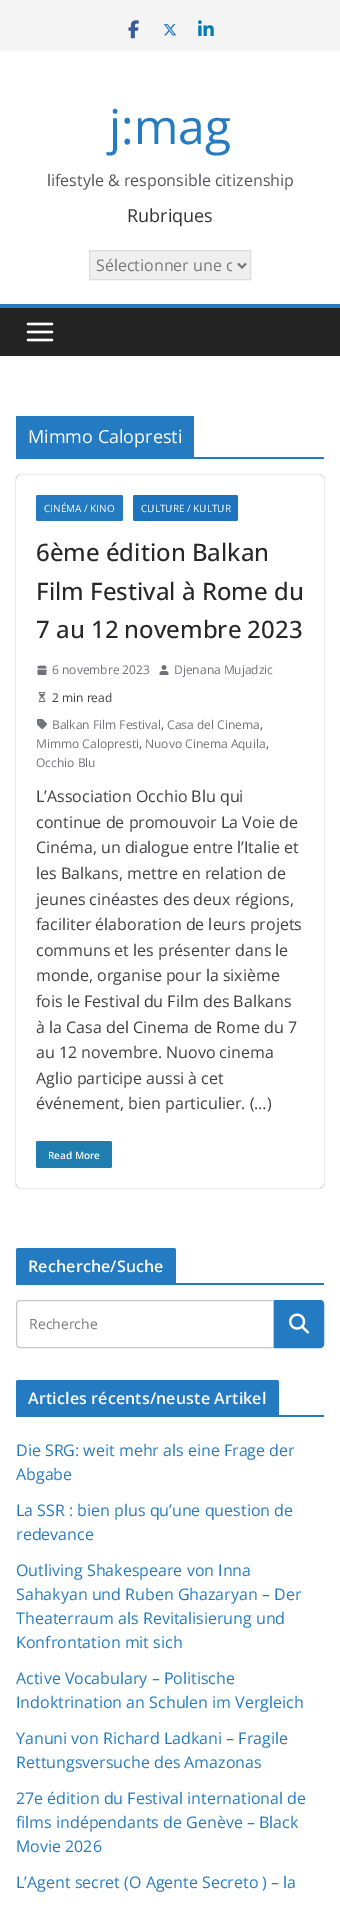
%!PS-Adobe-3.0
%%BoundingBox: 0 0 340 1905
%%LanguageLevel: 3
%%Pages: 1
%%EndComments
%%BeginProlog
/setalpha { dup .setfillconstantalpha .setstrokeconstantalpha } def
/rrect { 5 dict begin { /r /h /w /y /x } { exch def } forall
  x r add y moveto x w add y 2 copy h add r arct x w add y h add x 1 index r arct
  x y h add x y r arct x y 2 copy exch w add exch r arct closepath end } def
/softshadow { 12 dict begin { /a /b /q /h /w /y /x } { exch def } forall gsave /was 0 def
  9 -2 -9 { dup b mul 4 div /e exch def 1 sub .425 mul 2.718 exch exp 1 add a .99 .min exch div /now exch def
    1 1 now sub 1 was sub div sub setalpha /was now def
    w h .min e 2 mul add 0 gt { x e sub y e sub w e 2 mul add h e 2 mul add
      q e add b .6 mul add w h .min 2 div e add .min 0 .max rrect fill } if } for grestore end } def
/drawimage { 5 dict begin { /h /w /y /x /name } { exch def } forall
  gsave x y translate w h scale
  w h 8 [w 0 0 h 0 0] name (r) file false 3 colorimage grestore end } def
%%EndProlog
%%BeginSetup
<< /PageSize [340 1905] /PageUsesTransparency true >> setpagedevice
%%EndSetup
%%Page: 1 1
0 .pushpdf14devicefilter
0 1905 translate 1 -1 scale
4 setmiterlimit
1 setgray
0 0 340 1905 rectfill
0 setgray
0 0 340 50 0 1 0.1 softshadow
0.957 0.957 0.961 setrgbcolor
0 0 340 50 rectfill
(images/1.raw) 128 20 11 19 drawimage
(images/2.raw) 163 24 14 12 drawimage
(images/3.raw) 198 20 16 16 drawimage
0.937 setgray
newpath 89.5 250.5 moveto 250.5 250.5 lineto 250.5 279.5 lineto 89.5 279.5 lineto closepath gsave fill grestore
0.867 setgray
stroke
0.467 setgray
2 setlinewidth
newpath 238 263.5 moveto 242 267.5 lineto 246 263.5 lineto stroke
0.137 setgray
0 308 340 48 rectfill
0.145 0.482 0.757 setrgbcolor
0 304 340 4 rectfill
(images/4.raw) 26 322 28 20 drawimage
16 457 308 2 rectfill
16 416 178 41 rectfill
gsave
newpath 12 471 moveto 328 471 lineto 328 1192 lineto 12 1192 lineto closepath 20 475 moveto 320 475 lineto 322 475 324 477 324 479 curveto 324 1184 lineto 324 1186 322 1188 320 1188 curveto 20 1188 lineto 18 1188 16 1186 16 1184 curveto 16 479 lineto 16 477 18 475 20 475 curveto closepath eoclip newpath
0 setgray
16 475 308 713 4 1 0.24 softshadow
grestore
36 495 87 26 2 rrect fill
0.118 0.451 0.745 setrgbcolor
133 495 105 26 2 rrect fill
(images/5.raw) 37 665 10 10 drawimage
(images/6.raw) 159 665 10 10 drawimage
(images/7.raw) 38 692 8 10 drawimage
(images/8.raw) 37 719 10 10 drawimage
0.125 0.49 0.686 setrgbcolor
36 1141 76 27 2 rrect fill
0.145 0.482 0.757 setrgbcolor
16 1283 308 2 rectfill
newpath 18 1248 moveto 174 1248 lineto 175 1248 176 1249 176 1250 curveto 176 1283 lineto 16 1283 lineto 16 1250 lineto 16 1249 17 1248 18 1248 curveto closepath fill
0.78 setgray
1 setlinewidth
newpath 20 1300.5 moveto 273.5 1300.5 lineto 273.5 1347.5 lineto 20 1347.5 lineto 18 1347.5 16.5 1346 16.5 1344 curveto 16.5 1304 lineto 16.5 1302 18 1300.5 20 1300.5 curveto closepath stroke
0.145 0.482 0.757 setrgbcolor
newpath 274.5 1300.5 moveto 320 1300.5 lineto 322 1300.5 323.5 1302 323.5 1304 curveto 323.5 1344 lineto 323.5 1346 322 1347.5 320 1347.5 curveto 274.5 1347.5 lineto closepath gsave fill grestore
stroke
(images/9.raw) 289 1313 20 21 drawimage
16 1415 308 2 rectfill
newpath 18 1380 moveto 277 1380 lineto 278 1380 279 1381 279 1382 curveto 279 1415 lineto 16 1415 lineto 16 1382 lineto 16 1381 17 1380 18 1380 curveto closepath fill
/OpenSans-Regular [48 0 0 -48 0 0] selectfont
109 144 moveto (j:mag) show
/OpenSans-Regular [16 0 0 -16 0 0] selectfont
0.322 0.322 0.357 setrgbcolor
47 186 moveto (lifestyle & responsible citizenship) show
/OpenSans-Regular [18 0 0 -18 0 0] selectfont
0.2 setgray
127 222 moveto (Rubriques) show
gsave
96 253 136 24 rectclip
/OpenSans-Regular [16 0 0 -16 0 0] selectfont
0.467 setgray
96 271 moveto (Sélectionner une c) show
grestore
1 setgray
28 443 moveto (Mimmo Calopresti) show
/OpenSans-Regular [10 0 0 -10 0 0] selectfont
44 512 moveto (CINÉMA / KINO) show
141 512 moveto (CULTURE / KULTUR) show
/OpenSans-Medium [24 0 0 -24 0 0] selectfont
0.153 0.153 0.165 setrgbcolor
36 561 moveto (6ème édition Balkan) show
36 600 moveto (Film Festival à Rome du) show
36 638 moveto (7 au 12 novembre 2023) show
/OpenSans-Regular [12 0 0 -12 0 0] selectfont
0.443 0.443 0.478 setrgbcolor
52 674 moveto (6 novembre 2023) show
174 674 moveto (Djenana Mujadzic) show
0.247 0.247 0.275 setrgbcolor
52 702 moveto (2 min read) show
0.443 0.443 0.478 setrgbcolor
52 729 moveto (Balkan Film Festival) show
0.247 0.247 0.275 setrgbcolor
161 729 moveto (,) show
0.443 0.443 0.478 setrgbcolor
167 729 moveto (Casa del Cinema) show
0.247 0.247 0.275 setrgbcolor
260 729 moveto (,) show
0.443 0.443 0.478 setrgbcolor
36 748 moveto (Mimmo Calopresti) show
0.247 0.247 0.275 setrgbcolor
139 748 moveto (,) show
0.443 0.443 0.478 setrgbcolor
145 748 moveto (Nuovo Cinema Aquila) show
0.247 0.247 0.275 setrgbcolor
266 748 moveto (,) show
0.443 0.443 0.478 setrgbcolor
36 767 moveto (Occhio Blu) show
/OpenSans-Regular [16 0 0 -16 0 0] selectfont
0.247 0.247 0.275 setrgbcolor
36 802 moveto (L’Association Occhio Blu qui) show
36 828 moveto (continue de promouvoir La Voie de) show
36 853 moveto (Cinéma, un dialogue entre l’Italie et) show
36 879 moveto (les Balkans, mettre en relation de) show
36 905 moveto (jeunes cinéastes des deux régions,) show
36 930 moveto (faciliter élaboration de leurs projets) show
36 956 moveto (communs et les présenter dans le) show
36 981 moveto (monde, organise pour la sixième) show
36 1007 moveto (fois le Festival du Film des Balkans) show
36 1033 moveto (à la Casa del Cinema de Rome du 7) show
36 1058 moveto (au 12 novembre. Nuovo cinema) show
36 1084 moveto (Aglio participe aussi à cet) show
36 1109 moveto (événement, bien particulier. \(…\)) show
/OpenSans-SemiBold [10 0 0 -10 0 0] selectfont
1 setgray
48 1159 moveto (Read More) show
/OpenSans-SemiBold [16 0 0 -16 0 0] selectfont
28 1272 moveto 0.15 0 (Recherche/Suche) ashow
/OpenSans-Regular [14 0 0 -14 0 0] selectfont
0.467 setgray
29 1329 moveto (Recherche) show
/OpenSans-SemiBold [16 0 0 -16 0 0] selectfont
1 setgray
28 1404 moveto 0.15 0 (Articles récents/neuste Artikel) ashow
/OpenSans-Regular [16 0 0 -16 0 0] selectfont
0.145 0.482 0.757 setrgbcolor
16 1456 moveto (Die SRG: weit mehr als eine Frage der) show
16 1480 moveto (Abgabe) show
16 1516 moveto (La SSR : bien plus qu’une question de) show
16 1540 moveto (redevance) show
16 1576 moveto (Outliving Shakespeare von Inna) show
16 1600 moveto (Sahakyan und Ruben Ghazaryan – Der) show
16 1624 moveto (Theaterraum als Revitalisierung und) show
16 1648 moveto (Konfrontation mit sich) show
16 1684 moveto (Active Vocabulary – Politische) show
16 1708 moveto (Indoktrination an Schulen im Vergleich) show
16 1744 moveto (Yanuni von Richard Ladkani – Fragile) show
16 1768 moveto (Rettungsversuche des Amazonas) show
16 1804 moveto (27e édition du Festival international de) show
16 1828 moveto (films indépendants de Genève – Black) show
16 1852 moveto (Movie 2026) show
16 1888 moveto (L’Agent secret \(O Agente Secreto \) – la) show
.poppdf14devicefilter showpage
%%EOF
